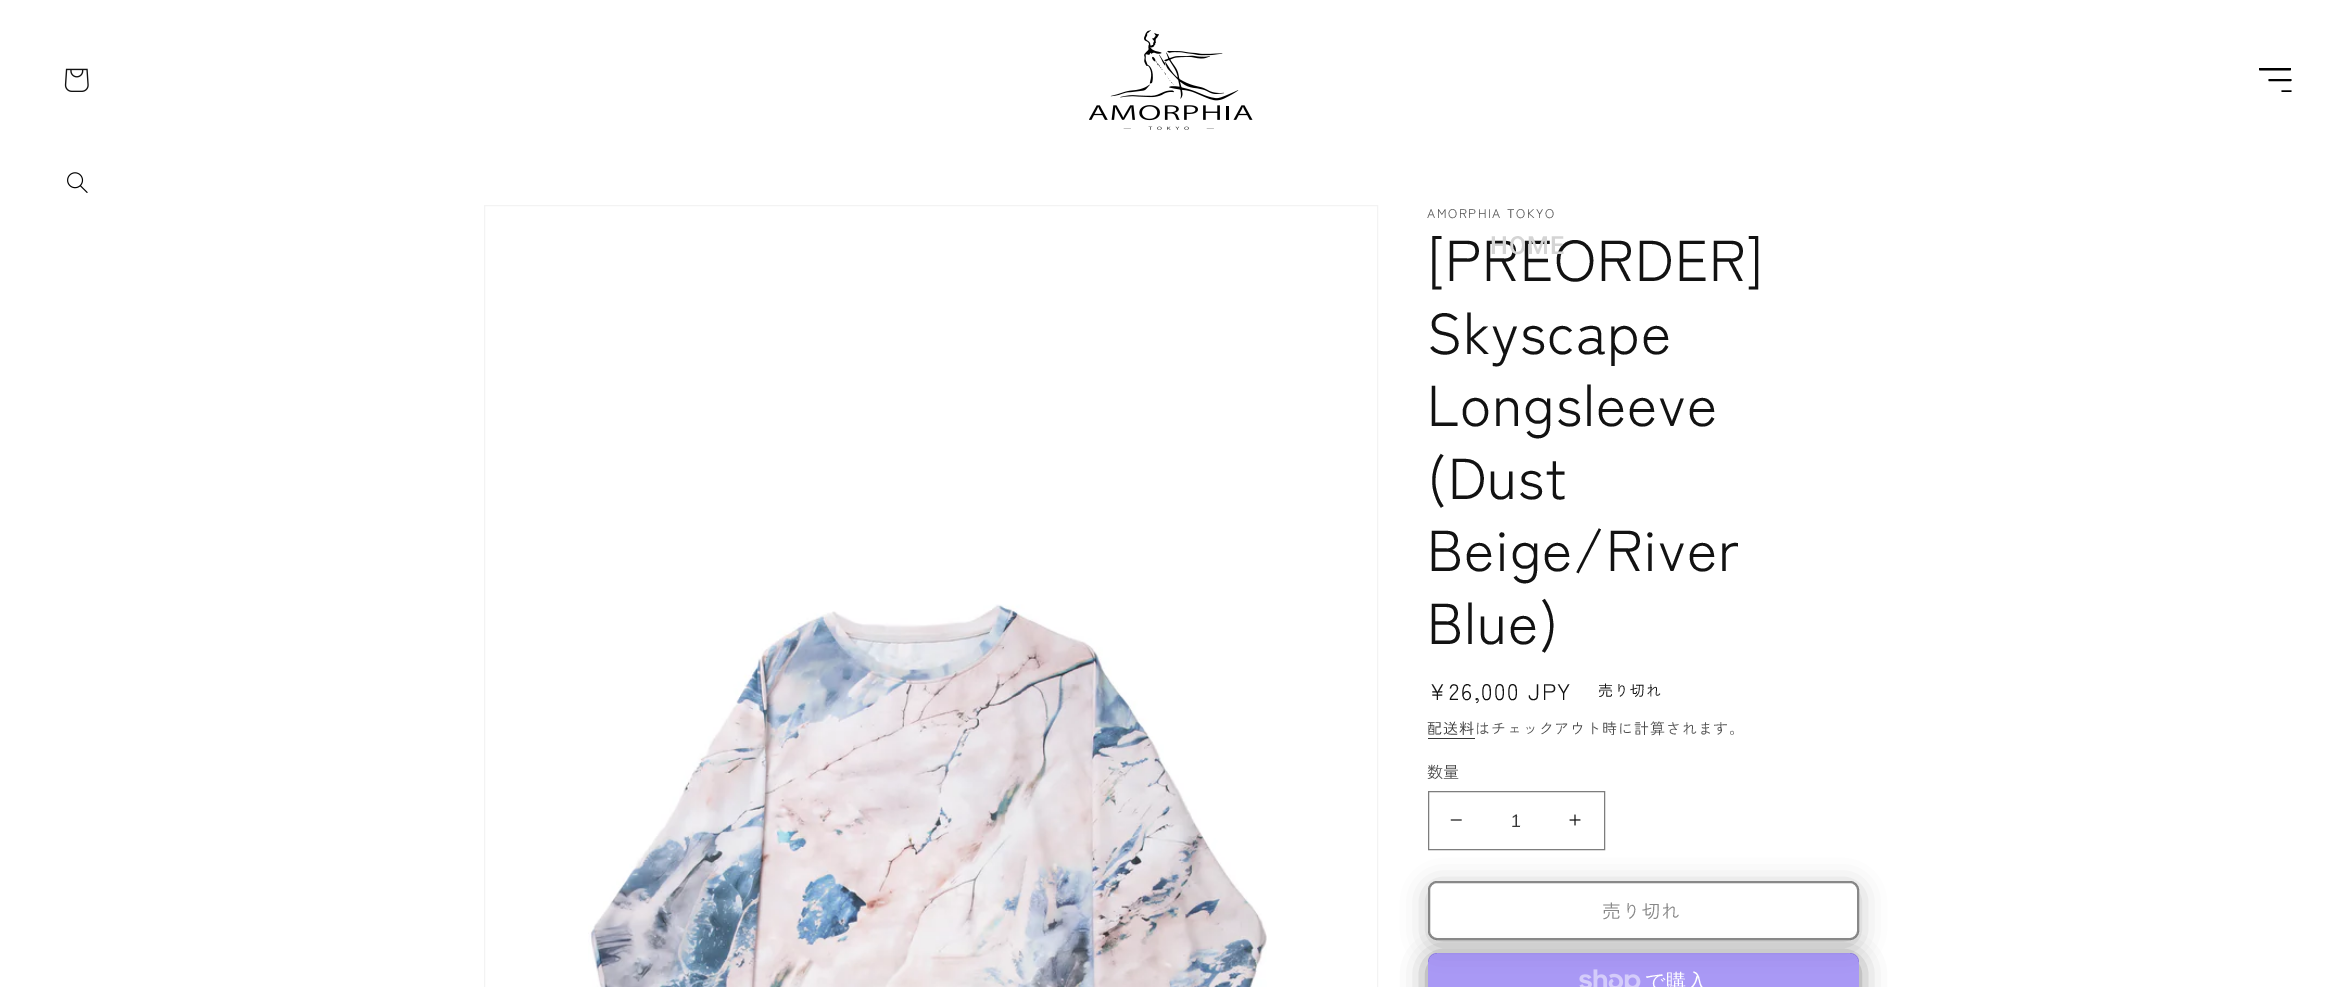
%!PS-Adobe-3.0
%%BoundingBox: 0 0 2341 987
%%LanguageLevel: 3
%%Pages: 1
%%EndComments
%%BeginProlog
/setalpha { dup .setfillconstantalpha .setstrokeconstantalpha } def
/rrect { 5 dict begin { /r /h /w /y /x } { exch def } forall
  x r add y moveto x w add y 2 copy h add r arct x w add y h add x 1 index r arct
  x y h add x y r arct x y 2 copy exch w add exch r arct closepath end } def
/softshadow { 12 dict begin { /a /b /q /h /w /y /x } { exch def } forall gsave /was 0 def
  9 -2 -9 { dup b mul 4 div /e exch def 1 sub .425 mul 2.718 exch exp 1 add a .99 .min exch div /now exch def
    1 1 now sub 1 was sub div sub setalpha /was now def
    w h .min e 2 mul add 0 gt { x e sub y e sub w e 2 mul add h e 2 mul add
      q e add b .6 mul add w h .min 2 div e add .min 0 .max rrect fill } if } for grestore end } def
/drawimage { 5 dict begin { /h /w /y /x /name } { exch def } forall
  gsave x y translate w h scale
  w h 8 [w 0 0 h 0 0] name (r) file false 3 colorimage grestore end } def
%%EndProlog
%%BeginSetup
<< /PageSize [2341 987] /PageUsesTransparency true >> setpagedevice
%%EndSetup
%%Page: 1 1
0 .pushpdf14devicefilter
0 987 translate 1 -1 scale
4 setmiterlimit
1 setgray
0 0 2341 987 rectfill
0.953 setgray
484.5 205.5 893 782 rectstroke
(images/1.raw) 588 604 679 383 drawimage
0.212 setgray
1428 738 47 1 rectfill
(images/2.raw) 1450 819 12 2 drawimage
(images/3.raw) 1569 814 12 12 drawimage
gsave
newpath 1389 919 moveto 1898 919 lineto 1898 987 lineto 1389 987 lineto closepath 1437 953 moveto 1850 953 lineto 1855 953 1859 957 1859 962 curveto 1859 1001 lineto 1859 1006 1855 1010 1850 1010 curveto 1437 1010 lineto 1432 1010 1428 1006 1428 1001 curveto 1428 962 lineto 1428 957 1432 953 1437 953 curveto closepath eoclip newpath
0.071 setgray
1428 958 431 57 9 12.5 0.5 softshadow
grestore
0.5 setalpha
1 setgray
1428 881 431 59 9 rrect fill
gsave
newpath 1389 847 moveto 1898 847 lineto 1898 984 lineto 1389 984 lineto closepath 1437 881 moveto 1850 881 lineto 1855 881 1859 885 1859 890 curveto 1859 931 lineto 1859 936 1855 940 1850 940 curveto 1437 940 lineto 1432 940 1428 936 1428 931 curveto 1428 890 lineto 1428 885 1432 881 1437 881 curveto closepath eoclip newpath
1 setalpha
0.071 setgray
1428 886 431 59 9 12.5 0.25 softshadow
grestore
1 setalpha
0.49 setgray
1428.5 791.5 176 58 rectstroke
0.5 setalpha
1 setgray
1428.5 881.5 430 58 8.5 rrect stroke
0.071 setgray
2 setlinewidth
1429 882 429 57 8 rrect stroke
0.329 0.2 0.922 setrgbcolor
1428 953 431 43 9 rrect fill
1 setalpha
(images/4.raw) 1579 969 62 18 drawimage
(images/5.raw) 64 68 25 24 drawimage
(images/6.raw) 1089 30 164 100 drawimage
gsave
2259 68 32 25 rectclip
0 setgray
2.5 setlinewidth
1 setlinecap
newpath 2260 69 moveto 2290 69 lineto stroke
grestore
0 setgray
2.1 setlinewidth
1 setlinecap
newpath 2269.5 80 moveto 2290.5 80 lineto stroke
1.4 setlinewidth
newpath 2282 91 moveto 2291 91 lineto stroke
(images/7.raw) 67 172 21 21 drawimage
/ZenKakuGothicNew-Regular [12.5 0 0 -12.5 0 0] selectfont
0.302 setgray
1427 218 moveto 1.6 0 (AMORPHIA TOKYO) ashow
/ZenKakuGothicNew-Regular [57.5 0 0 -57.5 0 0] selectfont
0.071 setgray
1427 281 moveto 0.9 0 ([PREORDER]) ashow
1427 354 moveto 0.9 0 (Skyscape) ashow
1427 426 moveto 0.9 0 (Longsleeve) ashow
1427 499 moveto 0.9 0 (\(Dust) ashow
1427 571 moveto 0.9 0 (Beige/River) ashow
1427 644 moveto 0.9 0 (Blue\)) ashow
/ZenKakuGothicNew-Regular [22.5 0 0 -22.5 0 0] selectfont
1427 700 moveto 1.6 0 (¥26,000 JPY) ashow
/ZenKakuGothicNew-Regular [15 0 0 -15 0 0] selectfont
1598 696 moveto 1 0 (売り切れ) ashow
0.212 setgray
1427 734 moveto 0.9 0 (配送料) ashow
0.302 setgray
1475 734 moveto 0.9 0 (はチェックアウト時に計算されます。) ashow
/ZenKakuGothicNew-Regular [16 0 0 -16 0 0] selectfont
1427 778 moveto (数量) show
/LiberationSans-Regular [18 0 0 -18 0 0] selectfont
0.212 setgray
1511 827 moveto (1) show
/ZenKakuGothicNew-Regular [18.75 0 0 -18.75 0 0] selectfont
0.533 setgray
1602 918 moveto 1 0 (売り切れ) ashow
/WenQuanYiZenHei-Medium [20 0 0 -20 0 0] selectfont
1 setgray
1645 988 moveto 1 0 (で購入) ashow
/Roboto-Medium [25 0 0 -25 0 0] selectfont
0.831 setgray
1490 254 moveto 1 0 (HOME) ashow
.poppdf14devicefilter showpage
%%EOF
